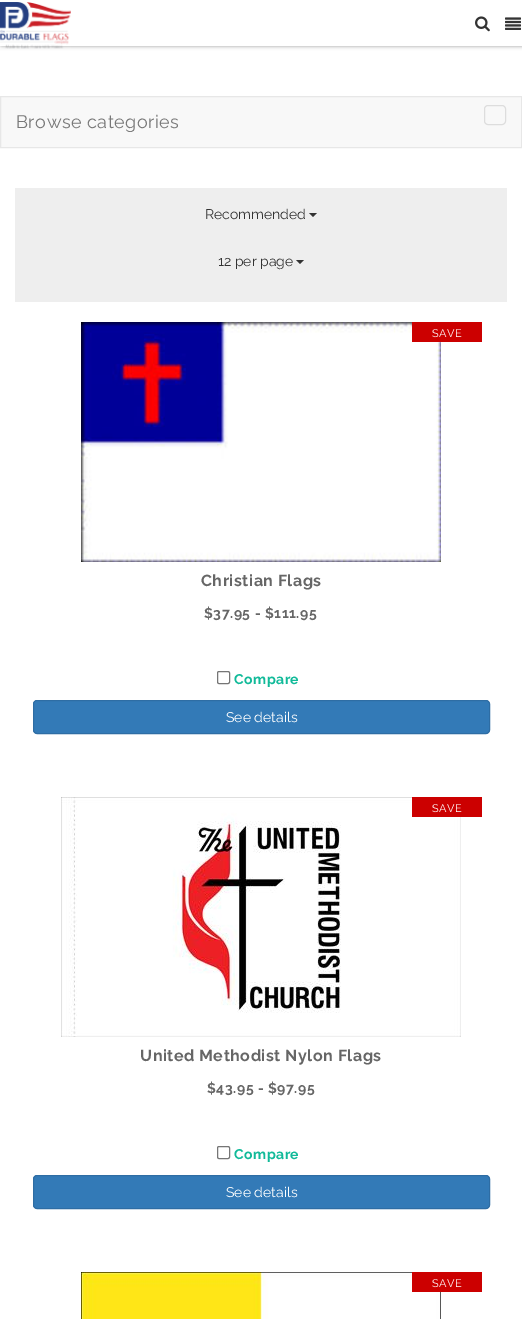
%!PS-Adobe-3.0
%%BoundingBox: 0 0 522 1319
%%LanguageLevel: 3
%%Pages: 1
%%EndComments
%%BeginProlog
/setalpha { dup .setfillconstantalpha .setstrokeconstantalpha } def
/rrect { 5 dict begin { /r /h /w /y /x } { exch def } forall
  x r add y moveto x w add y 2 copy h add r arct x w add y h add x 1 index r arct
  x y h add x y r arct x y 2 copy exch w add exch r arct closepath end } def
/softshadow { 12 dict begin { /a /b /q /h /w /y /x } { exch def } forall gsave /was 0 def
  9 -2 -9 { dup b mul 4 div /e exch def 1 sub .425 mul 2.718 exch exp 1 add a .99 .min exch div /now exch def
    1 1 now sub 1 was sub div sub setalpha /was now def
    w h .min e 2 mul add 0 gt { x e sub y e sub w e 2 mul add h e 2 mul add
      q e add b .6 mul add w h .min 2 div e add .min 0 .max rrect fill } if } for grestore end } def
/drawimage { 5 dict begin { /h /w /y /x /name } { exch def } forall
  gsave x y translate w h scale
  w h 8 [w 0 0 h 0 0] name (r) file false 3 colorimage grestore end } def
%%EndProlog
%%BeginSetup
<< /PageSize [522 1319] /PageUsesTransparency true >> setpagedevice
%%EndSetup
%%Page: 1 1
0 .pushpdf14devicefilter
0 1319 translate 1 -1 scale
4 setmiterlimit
1 setgray
0 0 522 1319 rectfill
0 setgray
0 0 522 46 0 2 0.4 softshadow
1 setgray
0 0 522 46 rectfill
(images/1.raw) 0 2 71 47 drawimage
(images/2.raw) 475 16 15 16 drawimage
(images/3.raw) 505 17 16 13 drawimage
0.973 setgray
newpath 0.5 96.5 moveto 521.5 96.5 lineto 521.5 147.5 lineto 0.5 147.5 lineto closepath gsave fill grestore
0.906 setgray
stroke
0.867 setgray
484.5 105.5 21 19 3.5 rrect stroke
0.933 setgray
15 188 492 114 rectfill
0.2 setgray
newpath 309 213 moveto 317 213 lineto 313 217 lineto closepath fill
newpath 296 260 moveto 304 260 lineto 300 264 lineto closepath fill
(images/4.raw) 81 322 360 240 drawimage
0.8 0 0 setrgbcolor
412 322 70 20 rectfill
0.463 setgray
217.5 671.5 12 12 1.5 rrect stroke
0.2 0.478 0.718 setrgbcolor
33.5 700.5 456 33 3.5 rrect gsave fill grestore
0.18 0.427 0.643 setrgbcolor
stroke
(images/5.raw) 61 797 400 240 drawimage
0.8 0 0 setrgbcolor
412 797 70 20 rectfill
0.463 setgray
217.5 1146.5 12 12 1.5 rrect stroke
0.2 0.478 0.718 setrgbcolor
33.5 1175.5 456 33 3.5 rrect gsave fill grestore
0.18 0.427 0.643 setrgbcolor
stroke
(images/6.raw) 81 1272 360 47 drawimage
0.8 0 0 setrgbcolor
412 1272 70 20 rectfill
/Raleway-Regular [18 0 0 -18 0 0] selectfont
0.467 setgray
16 128 moveto 0.5 0 (Browse categories) ashow
/Raleway-Regular [14 0 0 -14 0 0] selectfont
0.2 setgray
205 219 moveto (Recommended) show
218 266 moveto (12 per page) show
/Raleway-Regular [11 0 0 -11 0 0] selectfont
1 setgray
432 337 moveto 0.5 0 (SAVE) ashow
/Raleway-Bold [16 0 0 -16 0 0] selectfont
0.4 setgray
201 586 moveto 0.5 0 (Christian Flags) ashow
/Raleway-Bold [14 0 0 -14 0 0] selectfont
204 618 moveto 0.5 0 ($37.95 - $111.95) ashow
0.067 0.729 0.6 setrgbcolor
234 684 moveto 0.5 0 (Compare) ashow
/Raleway-Regular [14 0 0 -14 0 0] selectfont
1 setgray
226 722 moveto (See details) show
/Raleway-Regular [11 0 0 -11 0 0] selectfont
432 812 moveto 0.5 0 (SAVE) ashow
/Raleway-Bold [16 0 0 -16 0 0] selectfont
0.4 setgray
140 1061 moveto 0.5 0 (United Methodist Nylon Flags) ashow
/Raleway-Bold [14 0 0 -14 0 0] selectfont
207 1093 moveto 0.5 0 ($43.95 - $97.95) ashow
0.067 0.729 0.6 setrgbcolor
234 1159 moveto 0.5 0 (Compare) ashow
/Raleway-Regular [14 0 0 -14 0 0] selectfont
1 setgray
226 1197 moveto (See details) show
/Raleway-Regular [11 0 0 -11 0 0] selectfont
432 1287 moveto 0.5 0 (SAVE) ashow
.poppdf14devicefilter showpage
%%EOF
